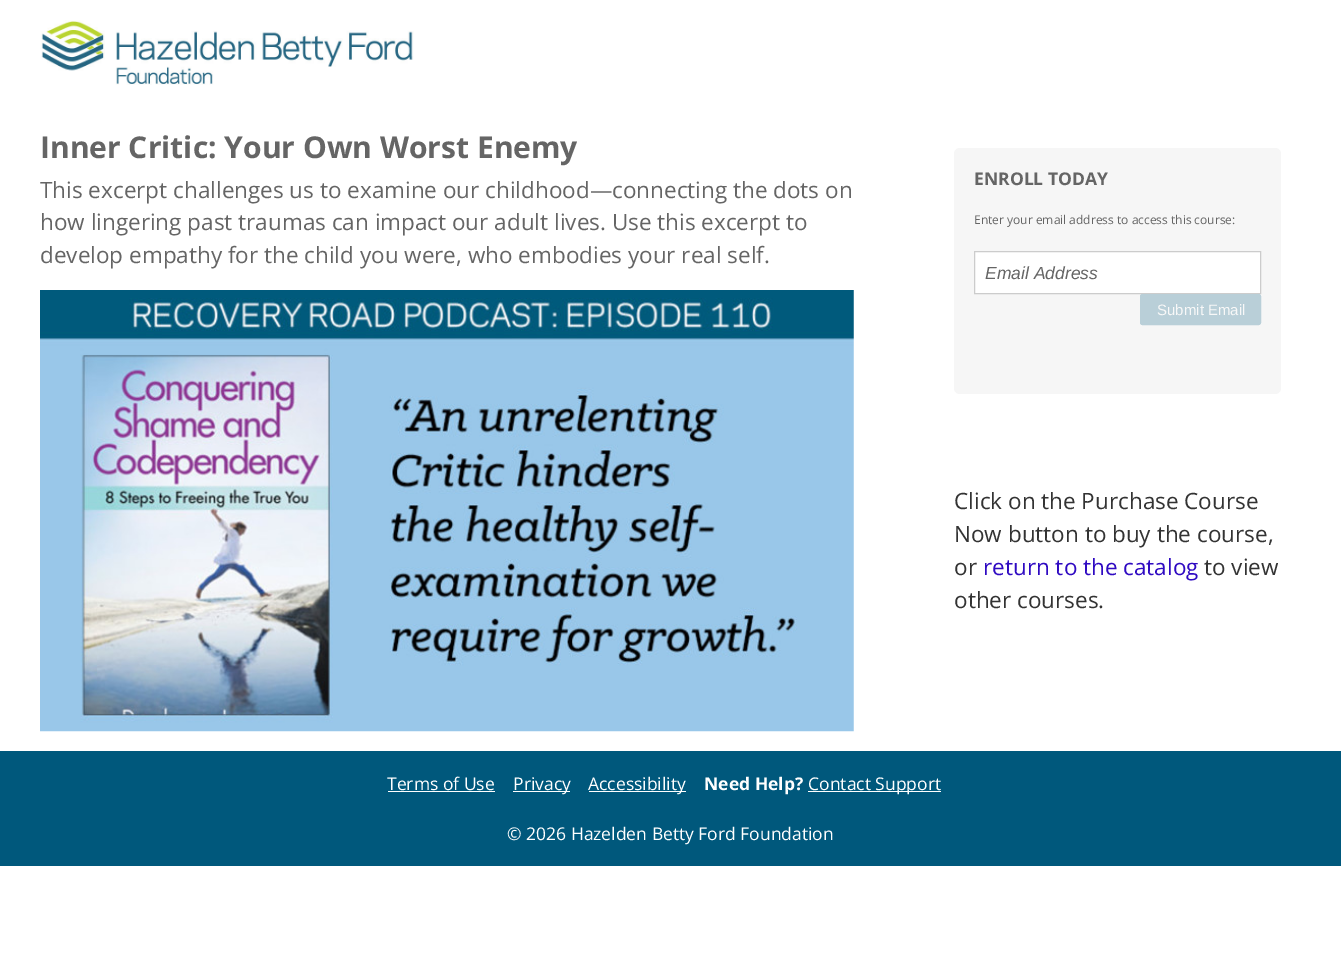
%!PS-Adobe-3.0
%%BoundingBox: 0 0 1341 974
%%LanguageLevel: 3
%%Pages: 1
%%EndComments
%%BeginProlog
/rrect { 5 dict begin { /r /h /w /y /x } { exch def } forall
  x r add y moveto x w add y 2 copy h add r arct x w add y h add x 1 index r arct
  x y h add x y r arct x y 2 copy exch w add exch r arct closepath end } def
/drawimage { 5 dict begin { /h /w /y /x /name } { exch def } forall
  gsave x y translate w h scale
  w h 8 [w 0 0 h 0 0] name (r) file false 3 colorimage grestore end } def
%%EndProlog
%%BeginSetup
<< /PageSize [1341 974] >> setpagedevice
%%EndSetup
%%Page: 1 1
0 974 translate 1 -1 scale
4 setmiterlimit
1 setgray
0 0 1341 974 rectfill
(images/1.raw) 40 20 374 65 drawimage
(images/2.raw) 40 290 814 442 drawimage
0.965 setgray
954 148 327 246 6 rrect fill
1 setgray
newpath 974.5 251.5 moveto 1260.5 251.5 lineto 1260.5 293.5 lineto 974.5 293.5 lineto closepath gsave fill grestore
0.8 setgray
stroke
0.725 0.812 0.847 setrgbcolor
1140.5 294.5 120 30 2 rrect gsave fill grestore
stroke
0 0.345 0.486 setrgbcolor
0 751 1341 115 rectfill
1 setgray
388 791 107 1 rectfill
513 791 57 1 rectfill
589 791 97 1 rectfill
808 791 133 1 rectfill
/OpenSans-Bold [30 0 0 -30 0 0] selectfont
0.396 setgray
40 158 moveto (Inner Critic: Your Own Worst Enemy) show
/OpenSans-Regular [22.5 0 0 -22.5 0 0] selectfont
40 198 moveto (This excerpt challenges us to examine our childhood—connecting the dots on) show
40 230 moveto (how lingering past traumas can impact our adult lives. Use this excerpt to) show
40 263 moveto (develop empathy for the child you were, who embodies your real self.) show
/OpenSans-Bold [17.5 0 0 -17.5 0 0] selectfont
974 185 moveto (ENROLL TODAY) show
/OpenSans-Regular [12 0 0 -12 0 0] selectfont
974 224 moveto (Enter your email address to access this course:) show
/LiberationSans-Italic [17.5 0 0 -17.5 0 0] selectfont
985 279 moveto (Email Address) show
/LiberationSans-Regular [15 0 0 -15 0 0] selectfont
0.973 setgray
1157 315 moveto (Submit Email) show
/OpenSans-Regular [22.5 0 0 -22.5 0 0] selectfont
0.2 setgray
954 509 moveto (Click on the Purchase Course) show
954 542 moveto (Now button to buy the course,) show
954 575 moveto (or) show
0.184 0.039 0.761 setrgbcolor
983 575 moveto (return to the catalog) show
0.2 setgray
1204 575 moveto (to view) show
954 608 moveto (other courses.) show
/OpenSans-Regular [17.5 0 0 -17.5 0 0] selectfont
1 setgray
387 790 moveto (Terms of Use) show
513 790 moveto (Privacy) show
588 790 moveto (Accessibility) show
/OpenSans-Bold [17.5 0 0 -17.5 0 0] selectfont
704 790 moveto (Need Help?) show
/OpenSans-Regular [17.5 0 0 -17.5 0 0] selectfont
808 790 moveto (Contact Support) show
507 840 moveto (© 2026 Hazelden Betty Ford Foundation) show
showpage
%%EOF
